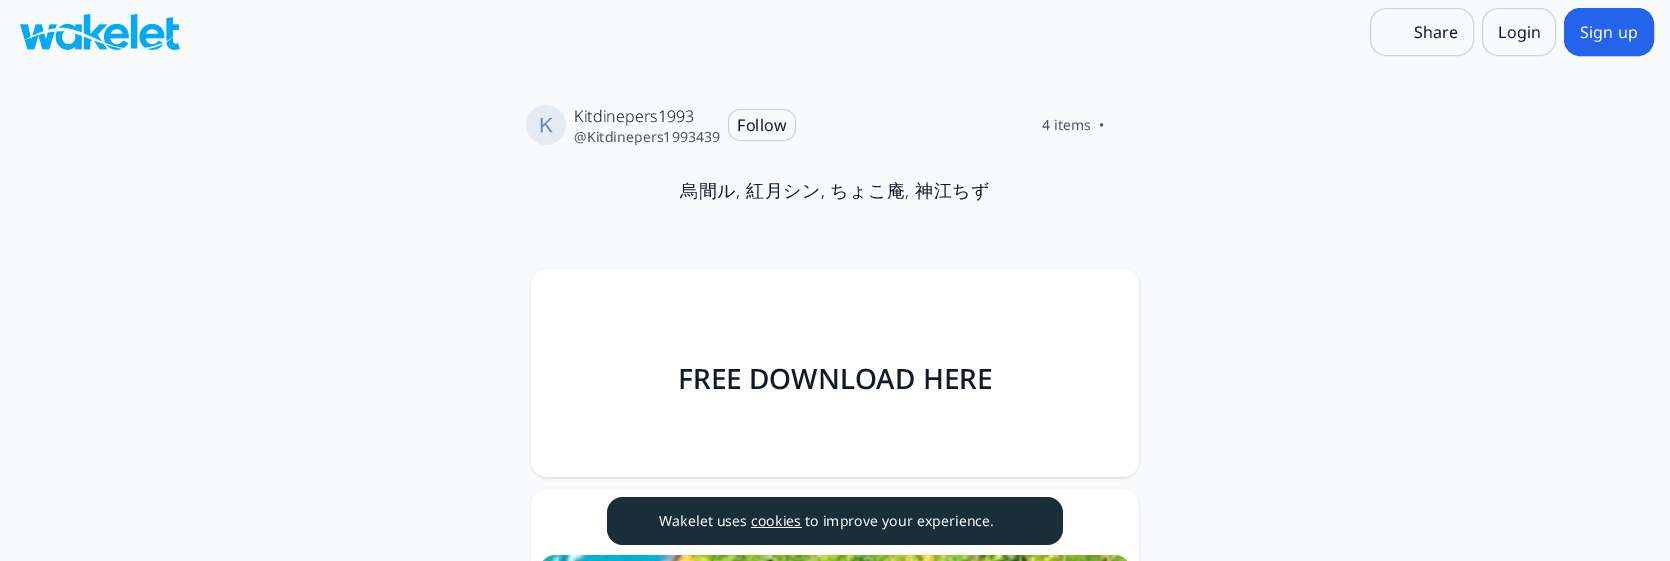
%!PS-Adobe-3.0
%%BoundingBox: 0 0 1670 561
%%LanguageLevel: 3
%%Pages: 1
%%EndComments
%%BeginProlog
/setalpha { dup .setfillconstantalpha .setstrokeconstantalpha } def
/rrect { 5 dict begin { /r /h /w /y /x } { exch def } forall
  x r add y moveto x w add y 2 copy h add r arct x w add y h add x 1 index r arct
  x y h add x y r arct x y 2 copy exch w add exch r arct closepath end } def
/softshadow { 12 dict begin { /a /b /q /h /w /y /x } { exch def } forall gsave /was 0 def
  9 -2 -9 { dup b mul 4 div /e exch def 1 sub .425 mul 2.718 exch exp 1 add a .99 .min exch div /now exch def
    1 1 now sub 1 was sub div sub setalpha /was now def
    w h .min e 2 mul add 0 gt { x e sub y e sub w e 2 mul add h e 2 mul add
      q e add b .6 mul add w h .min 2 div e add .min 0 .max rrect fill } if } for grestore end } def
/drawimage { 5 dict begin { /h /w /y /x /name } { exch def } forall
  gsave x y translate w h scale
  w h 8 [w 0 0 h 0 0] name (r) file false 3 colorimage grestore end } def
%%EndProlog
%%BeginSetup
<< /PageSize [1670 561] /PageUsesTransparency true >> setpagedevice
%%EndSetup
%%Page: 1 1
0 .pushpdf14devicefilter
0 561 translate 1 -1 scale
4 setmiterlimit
0.976 0.98 0.984 setrgbcolor
0 0 1670 561 rectfill
(images/1.raw) 20 14 160 36 drawimage
0.82 0.835 0.859 setrgbcolor
1370.5 8.5 103 47 15.5 rrect stroke
1482.5 8.5 73 47 15.5 rrect stroke
0.141 0.388 0.922 setrgbcolor
1564.5 8.5 89 47 15.5 rrect gsave fill grestore
stroke
(images/2.raw) 526 105 40 40 drawimage
0.82 0.835 0.859 setrgbcolor
728.5 109.5 67 31 11.5 rrect stroke
0 0.094 0.239 setrgbcolor
531 270 608 208 16 1 0.06 softshadow
531 270 608 208 16 1.5 0.1 softshadow
1 setgray
531 269 608 208 16 rrect fill
0 0.094 0.239 setrgbcolor
531 490 608 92 16 1.5 0.1 softshadow
1 setgray
newpath 547 489 moveto 1123 489 lineto 1132 489 1139 496 1139 505 curveto 1139 561 lineto 531 561 lineto 531 505 lineto 531 496 538 489 547 489 curveto closepath fill
(images/3.raw) 542 555 586 6 drawimage
0.098 0.18 0.22 setrgbcolor
607 497 456 48 16 rrect fill
1 setgray
751 527 51 1 rectfill
/NotoSans-Regular [16 0 0 -16 0 0] selectfont
0.067 0.094 0.153 setrgbcolor
1414 38 moveto 0.25 0 (Share) ashow
1498 38 moveto 0.25 0 (Login) ashow
1 setgray
1580 38 moveto 0.25 0 (Sign up) ashow
/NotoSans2-Light [16 0 0 -16 0 0] selectfont
0.067 0.094 0.153 setrgbcolor
574 122 moveto 0.1 0 (Kitdinepers1993) ashow
/NotoSans-Regular [14 0 0 -14 0 0] selectfont
0.294 0.333 0.388 setrgbcolor
574 142 moveto 0.15 0 (@Kitdinepers1993439) ashow
/NotoSans-Regular [16 0 0 -16 0 0] selectfont
0.067 0.094 0.153 setrgbcolor
737 131 moveto 0.25 0 (Follow) ashow
/NotoSans-Regular [14 0 0 -14 0 0] selectfont
0.294 0.333 0.388 setrgbcolor
1042 130 moveto 0.15 0 (4 items) ashow
1099 130 moveto 0.15 0 (•) ashow
/WenQuanYiZenHei-Medium [18 0 0 -18 0 0] selectfont
0.067 0.094 0.153 setrgbcolor
680 197 moveto 0.5 0 (烏間ル) ashow
/NotoSans-Light [18 0 0 -18 0 0] selectfont
736 197 moveto 0.5 0 (,) ashow
/WenQuanYiZenHei-Medium [18 0 0 -18 0 0] selectfont
746 197 moveto 0.5 0 (紅月シン) ashow
/NotoSans-Light [18 0 0 -18 0 0] selectfont
821 197 moveto 0.5 0 (,) ashow
/WenQuanYiZenHei-Medium [18 0 0 -18 0 0] selectfont
830 197 moveto 0.5 0 (ちょこ庵) ashow
/NotoSans-Light [18 0 0 -18 0 0] selectfont
905 197 moveto 0.5 0 (,) ashow
/WenQuanYiZenHei-Medium [18 0 0 -18 0 0] selectfont
915 197 moveto 0.5 0 (神江ちず) ashow
/NotoSans-Medium [28 0 0 -28 0 0] selectfont
678 389 moveto (FREE DOWNLOAD HERE) show
/NotoSans-Regular [14 0 0 -14 0 0] selectfont
1 setgray
659 526 moveto 0.15 0 (Wakelet uses cookies to improve your experience.) ashow
.poppdf14devicefilter showpage
%%EOF
